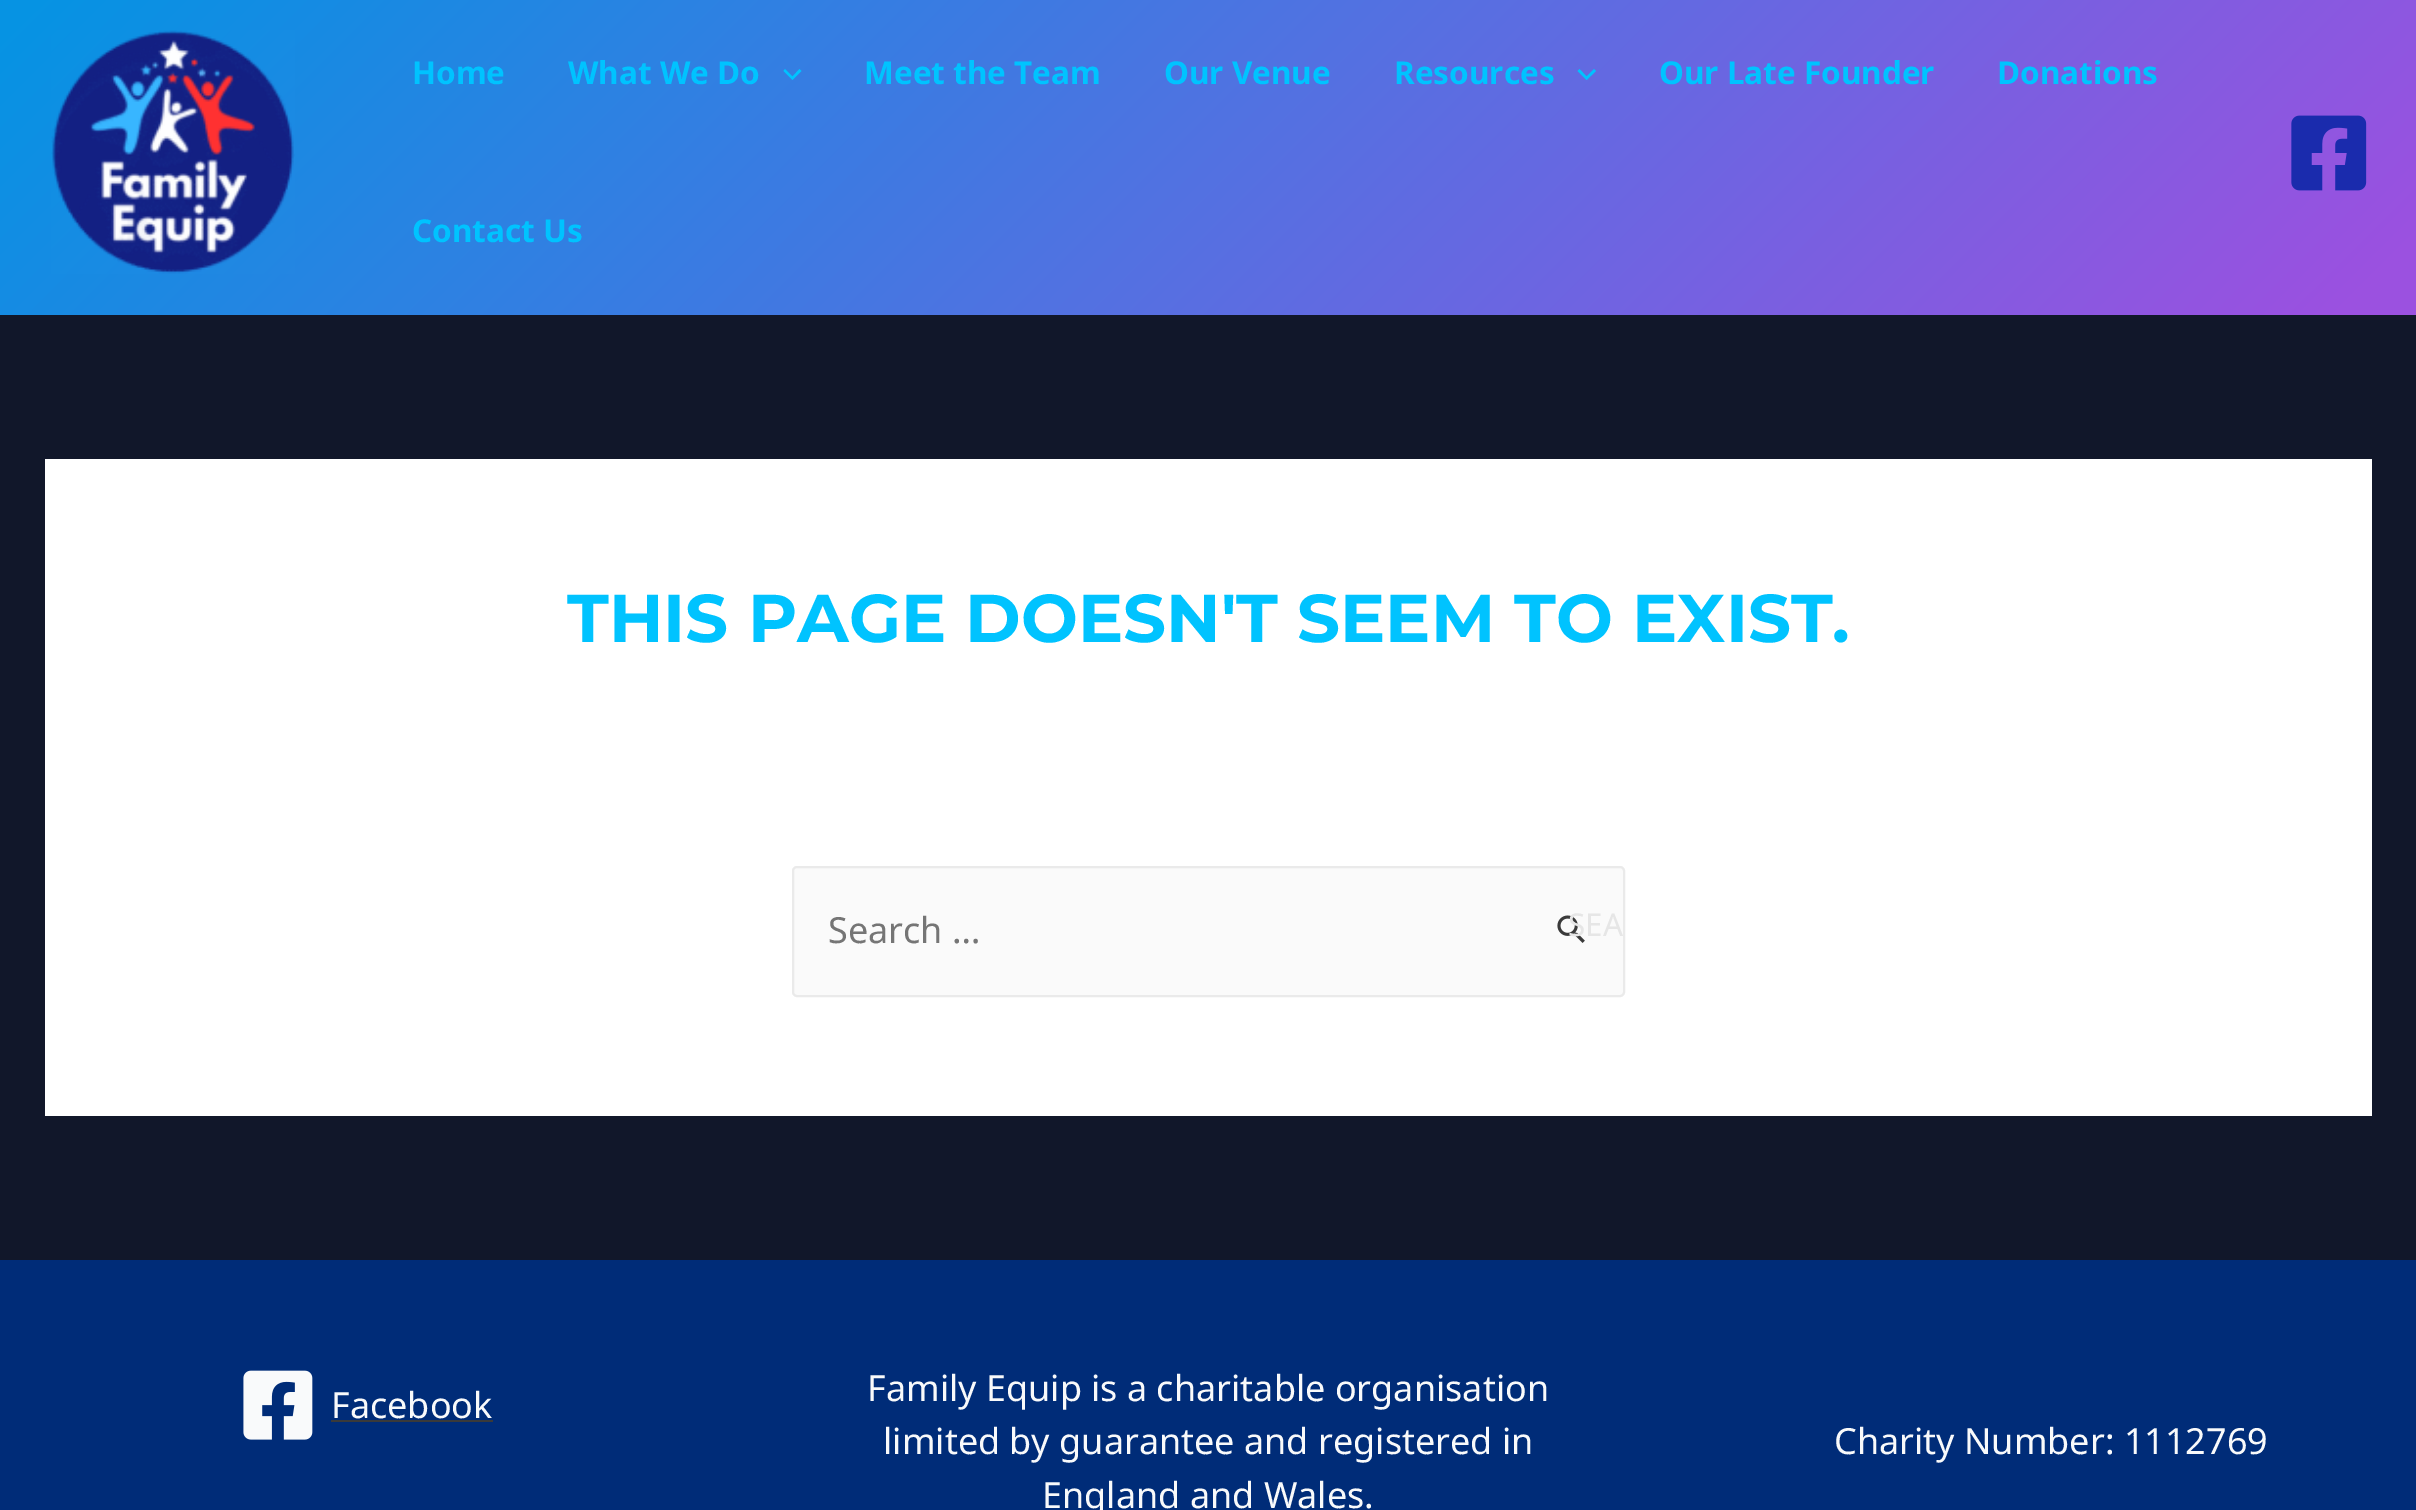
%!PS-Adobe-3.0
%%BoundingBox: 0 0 2416 1510
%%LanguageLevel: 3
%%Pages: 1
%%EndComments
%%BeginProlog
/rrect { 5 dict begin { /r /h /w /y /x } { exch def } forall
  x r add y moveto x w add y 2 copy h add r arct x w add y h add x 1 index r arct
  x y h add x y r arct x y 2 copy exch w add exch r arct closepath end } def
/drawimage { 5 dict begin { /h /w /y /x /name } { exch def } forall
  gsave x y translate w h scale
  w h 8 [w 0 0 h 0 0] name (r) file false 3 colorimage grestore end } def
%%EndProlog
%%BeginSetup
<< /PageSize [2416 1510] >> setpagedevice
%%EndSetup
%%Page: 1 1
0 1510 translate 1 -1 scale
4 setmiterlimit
0.067 0.09 0.165 setrgbcolor
0 0 2416 1510 rectfill
gsave newpath 0 0 moveto 2416 0 lineto 2416 315 lineto 0 315 lineto closepath clip newpath
<< /ShadingType 2 /ColorSpace /DeviceRGB /Coords [523 -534 1894 838] /Extend [true true] /Function << /FunctionType 3 /Domain [0 1] /Functions [<< /FunctionType 2 /Domain [0 1] /C0 [0.024 0.576 0.89] /C1 [0.024 0.576 0.89] /N 1 >> << /FunctionType 2 /Domain [0 1] /C0 [0.024 0.576 0.89] /C1 [0.608 0.318 0.878] /N 1 >> << /FunctionType 2 /Domain [0 1] /C0 [0.608 0.318 0.878] /C1 [0.608 0.318 0.878] /N 1 >>] /Bounds [0.02 0.97] /Encode [0 1 0 1 0 1] >> >> shfill grestore
(images/1.raw) 51 30 244 244 drawimage
0 0.765 1 setrgbcolor
newpath 783.5 71 moveto 792.5 80 lineto 801.5 71 lineto 799.5 69 lineto 792.5 76.5 lineto 785 69 lineto closepath fill
newpath 1577.5 71 moveto 1586.5 80 lineto 1596 71 lineto 1594 69 lineto 1586.5 76.5 lineto 1579.5 69 lineto closepath fill
(images/2.raw) 2291 115 76 76 drawimage
1 setgray
45 459 2327 657 rectfill
0.98 setgray
793 867 831 129 4 rrect gsave fill grestore
0.918 setgray
2 setlinewidth
stroke
(images/3.raw) 1557 915 28 28 drawimage
0 0.173 0.471 setrgbcolor
0 1260 2416 250 rectfill
(images/4.raw) 243 1370 70 70 drawimage
0.227 setgray
331 1420 162 2 rectfill
/NotoSans-Bold [31.5 0 0 -31.5 0 0] selectfont
0 0.765 1 setrgbcolor
412 84 moveto (Home) show
568 84 moveto (What We Do) show
864 84 moveto (Meet the Team) show
1164 84 moveto (Our Venue) show
1394 84 moveto (Resources) show
1659 84 moveto (Our Late Founder) show
1997 84 moveto (Donations) show
412 242 moveto (Contact Us) show
/Montserrat-Thin [67.5 0 0 -67.5 0 0] selectfont
567 642 moveto (THIS PAGE DOESN'T SEEM TO EXIST.) show
/NotoSans-Regular [36 0 0 -36 0 0] selectfont
0.459 setgray
828 943 moveto (Search …) show
/NotoSans-Regular [31.5 0 0 -31.5 0 0] selectfont
0.902 setgray
1568 936 moveto (SEA) show
/NotoSans-Regular [36 0 0 -36 0 0] selectfont
0.976 0.98 0.984 setrgbcolor
331 1418 moveto (Facebook) show
867 1401 moveto (Family Equip is a charitable organisation) show
883 1454 moveto (limited by guarantee and registered in) show
1042 1508 moveto (England and Wales.) show
1834 1454 moveto (Charity Number: 1112769) show
showpage
%%EOF
